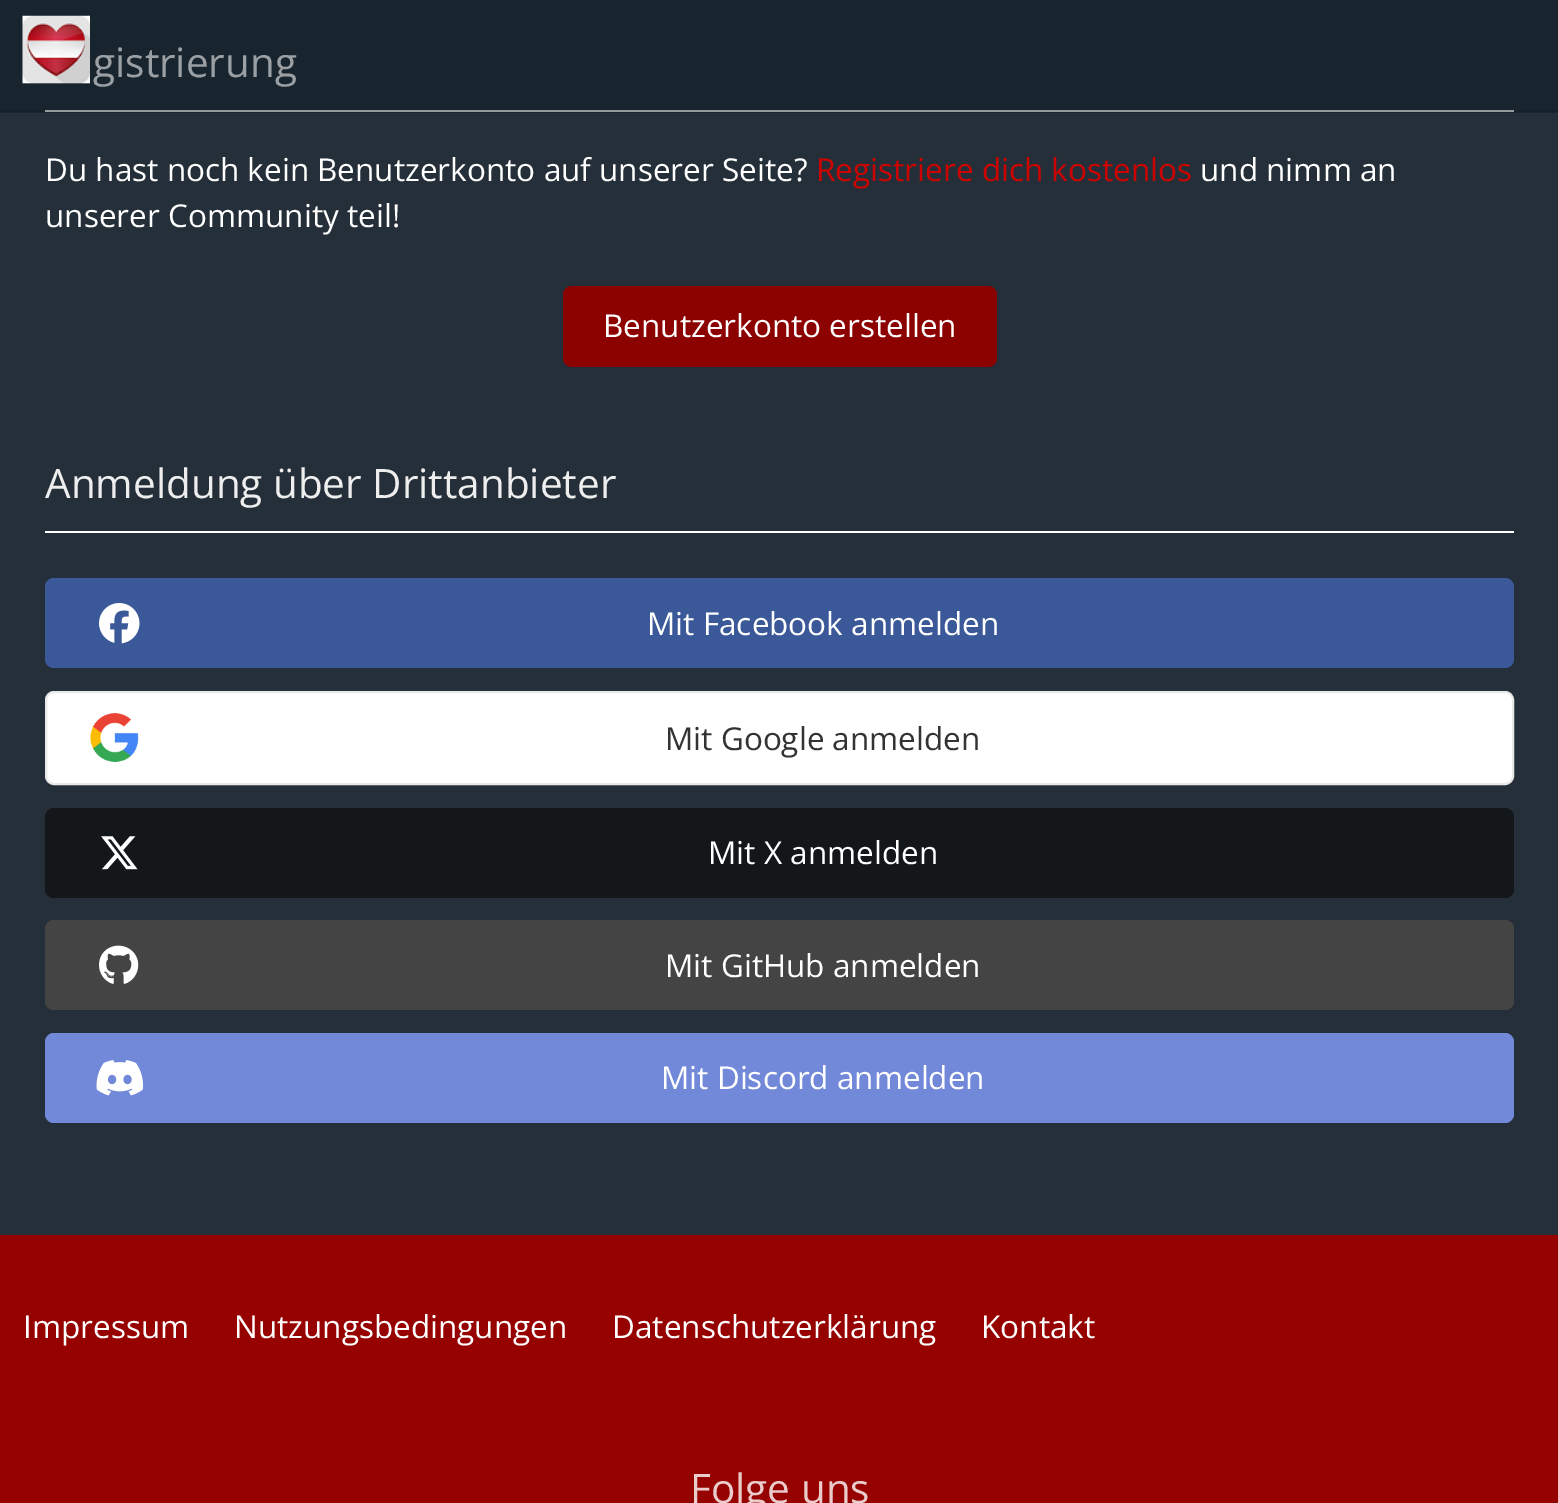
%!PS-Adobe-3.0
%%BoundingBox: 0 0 1558 1503
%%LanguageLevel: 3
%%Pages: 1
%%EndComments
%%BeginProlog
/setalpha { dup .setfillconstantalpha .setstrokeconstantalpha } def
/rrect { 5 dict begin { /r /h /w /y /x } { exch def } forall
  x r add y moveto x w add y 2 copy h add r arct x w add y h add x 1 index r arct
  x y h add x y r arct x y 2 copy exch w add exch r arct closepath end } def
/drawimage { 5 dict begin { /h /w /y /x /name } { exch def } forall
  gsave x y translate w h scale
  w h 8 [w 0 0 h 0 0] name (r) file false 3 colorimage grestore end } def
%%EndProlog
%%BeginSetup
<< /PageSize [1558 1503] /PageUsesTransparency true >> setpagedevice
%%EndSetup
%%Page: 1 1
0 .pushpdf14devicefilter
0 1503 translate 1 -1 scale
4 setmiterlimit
0.145 0.184 0.224 setrgbcolor
0 0 1558 1503 rectfill
1 setgray
45 110 1469 2 rectfill
0.549 0.008 0 setrgbcolor
563 286 434 81 9 rrect fill
1 setgray
45 531 1469 2 rectfill
0.231 0.349 0.596 setrgbcolor
45 578 1469 90 9 rrect fill
(images/2.raw) 99 603 41 41 drawimage
1 setgray
46 692 1467 92 8 rrect gsave fill grestore
0.914 setgray
2 setlinewidth
stroke
(images/3.raw) 90 713 49 49 drawimage
0.078 0.09 0.102 setrgbcolor
45 808 1469 90 9 rrect fill
(images/4.raw) 101 836 37 34 drawimage
0.267 setgray
45 920 1469 90 9 rrect fill
(images/5.raw) 99 945 40 39 drawimage
0.447 0.537 0.855 setrgbcolor
45 1033 1469 90 9 rrect fill
(images/6.raw) 96 1060 48 36 drawimage
0.584 0.008 0 setrgbcolor
0 1235 1558 268 rectfill
/OpenSans-Regular [40.5 0 0 -40.5 0 0] selectfont
0.933 setgray
93 77 moveto (gistrierung) show
0.35 setalpha
0 0.059 0.098 setrgbcolor
0 0 1558 113 rectfill
1 setalpha
(images/1.raw) 22 15 68 69 drawimage
0.1 setalpha
0 setgray
0 110 1558 2 rectfill
/OpenSans-Regular [31.5 0 0 -31.5 0 0] selectfont
1 setalpha
1 setgray
45 181 moveto (Du hast noch kein Benutzerkonto auf unserer Seite?) show
0.8 0.012 0 setrgbcolor
816 181 moveto (Registriere dich kostenlos) show
1 setgray
1200 181 moveto (und nimm an) show
45 227 moveto (unserer Community teil!) show
603 337 moveto (Benutzerkonto erstellen) show
/OpenSans-Regular [40.5 0 0 -40.5 0 0] selectfont
0.933 setgray
45 498 moveto (Anmeldung über Drittanbieter) show
/OpenSans-Regular [31.5 0 0 -31.5 0 0] selectfont
1 setgray
647 635 moveto (Mit Facebook anmelden) show
0.2 setgray
665 750 moveto (Mit Google anmelden) show
1 setgray
708 864 moveto (Mit X anmelden) show
665 977 moveto (Mit GitHub anmelden) show
661 1089 moveto (Mit Discord anmelden) show
23 1338 moveto (Impressum) show
234 1338 moveto (Nutzungsbedingungen) show
612 1338 moveto (Datenschutzerklärung) show
981 1338 moveto (Kontakt) show
/OpenSans-Regular [40.5 0 0 -40.5 0 0] selectfont
0.918 0.8 0.8 setrgbcolor
690 1503 moveto (Folge uns) show
.poppdf14devicefilter showpage
%%EOF
